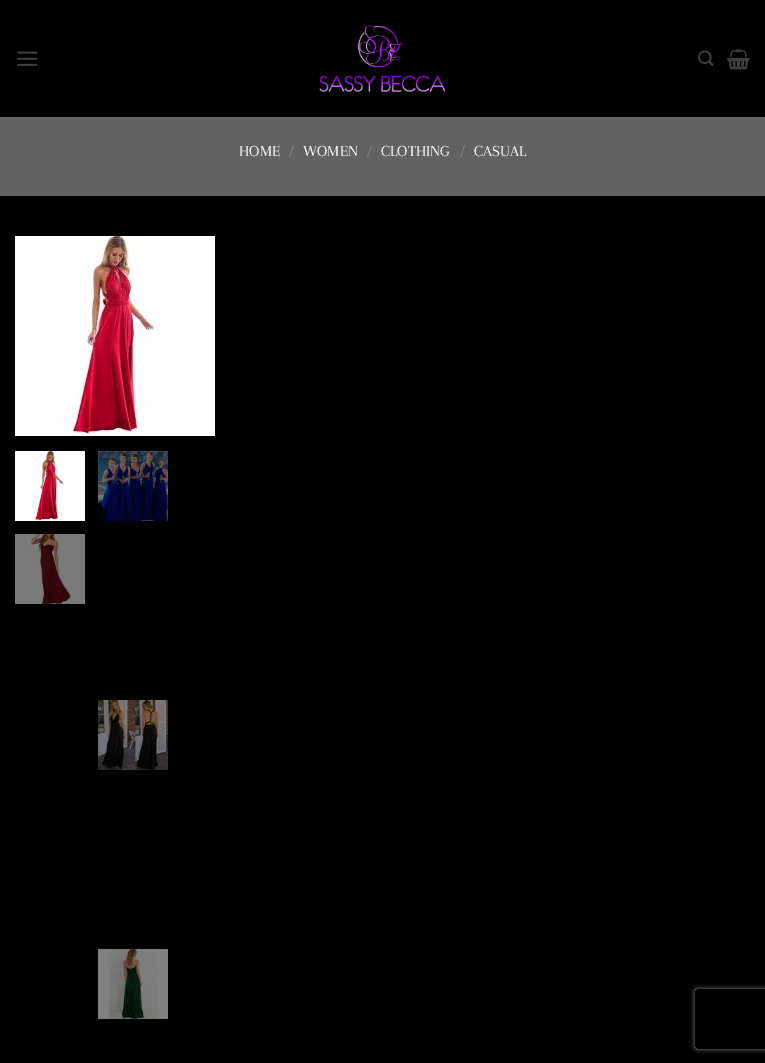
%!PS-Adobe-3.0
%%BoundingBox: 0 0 765 1063
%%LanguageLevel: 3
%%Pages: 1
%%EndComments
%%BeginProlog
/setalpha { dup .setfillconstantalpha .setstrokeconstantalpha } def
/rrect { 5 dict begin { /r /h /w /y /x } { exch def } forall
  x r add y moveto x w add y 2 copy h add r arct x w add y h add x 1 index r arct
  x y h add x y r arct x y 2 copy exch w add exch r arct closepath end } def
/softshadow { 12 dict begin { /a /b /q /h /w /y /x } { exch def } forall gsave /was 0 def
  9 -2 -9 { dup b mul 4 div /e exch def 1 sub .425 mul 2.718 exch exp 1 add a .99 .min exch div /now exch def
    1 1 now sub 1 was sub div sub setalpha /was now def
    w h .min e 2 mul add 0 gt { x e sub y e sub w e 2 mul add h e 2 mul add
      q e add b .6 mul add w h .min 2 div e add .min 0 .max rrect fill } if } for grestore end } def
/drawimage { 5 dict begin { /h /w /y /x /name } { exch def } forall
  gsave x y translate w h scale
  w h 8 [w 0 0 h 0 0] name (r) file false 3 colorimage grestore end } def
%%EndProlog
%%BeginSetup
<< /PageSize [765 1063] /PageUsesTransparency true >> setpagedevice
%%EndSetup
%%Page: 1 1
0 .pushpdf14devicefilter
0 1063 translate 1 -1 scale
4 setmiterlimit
0 setgray
0 0 765 1063 rectfill
(images/1.raw) 17 51 21 15 drawimage
(images/2.raw) 319 25 127 67 drawimage
(images/3.raw) 698 50 16 16 drawimage
(images/4.raw) 727 49 23 21 drawimage
0.384 setgray
0 117 765 79 rectfill
(images/5.raw) 15 236 200 200 drawimage
(images/6.raw) 15 451 70 70 drawimage
(images/7.raw) 98 451 70 70 drawimage
(images/8.raw) 15 534 70 70 drawimage
(images/9.raw) 98 700 70 70 drawimage
(images/10.raw) 98 949 70 70 drawimage
gsave
newpath 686 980 moveto 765 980 lineto 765 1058 lineto 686 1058 lineto closepath 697 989 moveto 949 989 lineto 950 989 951 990 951 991 curveto 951 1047 lineto 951 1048 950 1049 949 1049 curveto 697 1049 lineto 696 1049 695 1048 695 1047 curveto 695 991 lineto 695 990 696 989 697 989 curveto closepath eoclip newpath
0.502 setgray
695 989 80 60 2 2.5 1 softshadow
grestore
/Arapey-Regular [16 0 0 -16 0 0] selectfont
1 setgray
239 156 moveto (HOME) show
0.6 setgray
289 156 moveto (/) show
1 setgray
303 156 moveto (WOMEN) show
0.6 setgray
367 156 moveto (/) show
1 setgray
381 156 moveto (CLOTHING) show
0.6 setgray
460 156 moveto (/) show
1 setgray
474 156 moveto (CASUAL) show
.poppdf14devicefilter showpage
%%EOF
